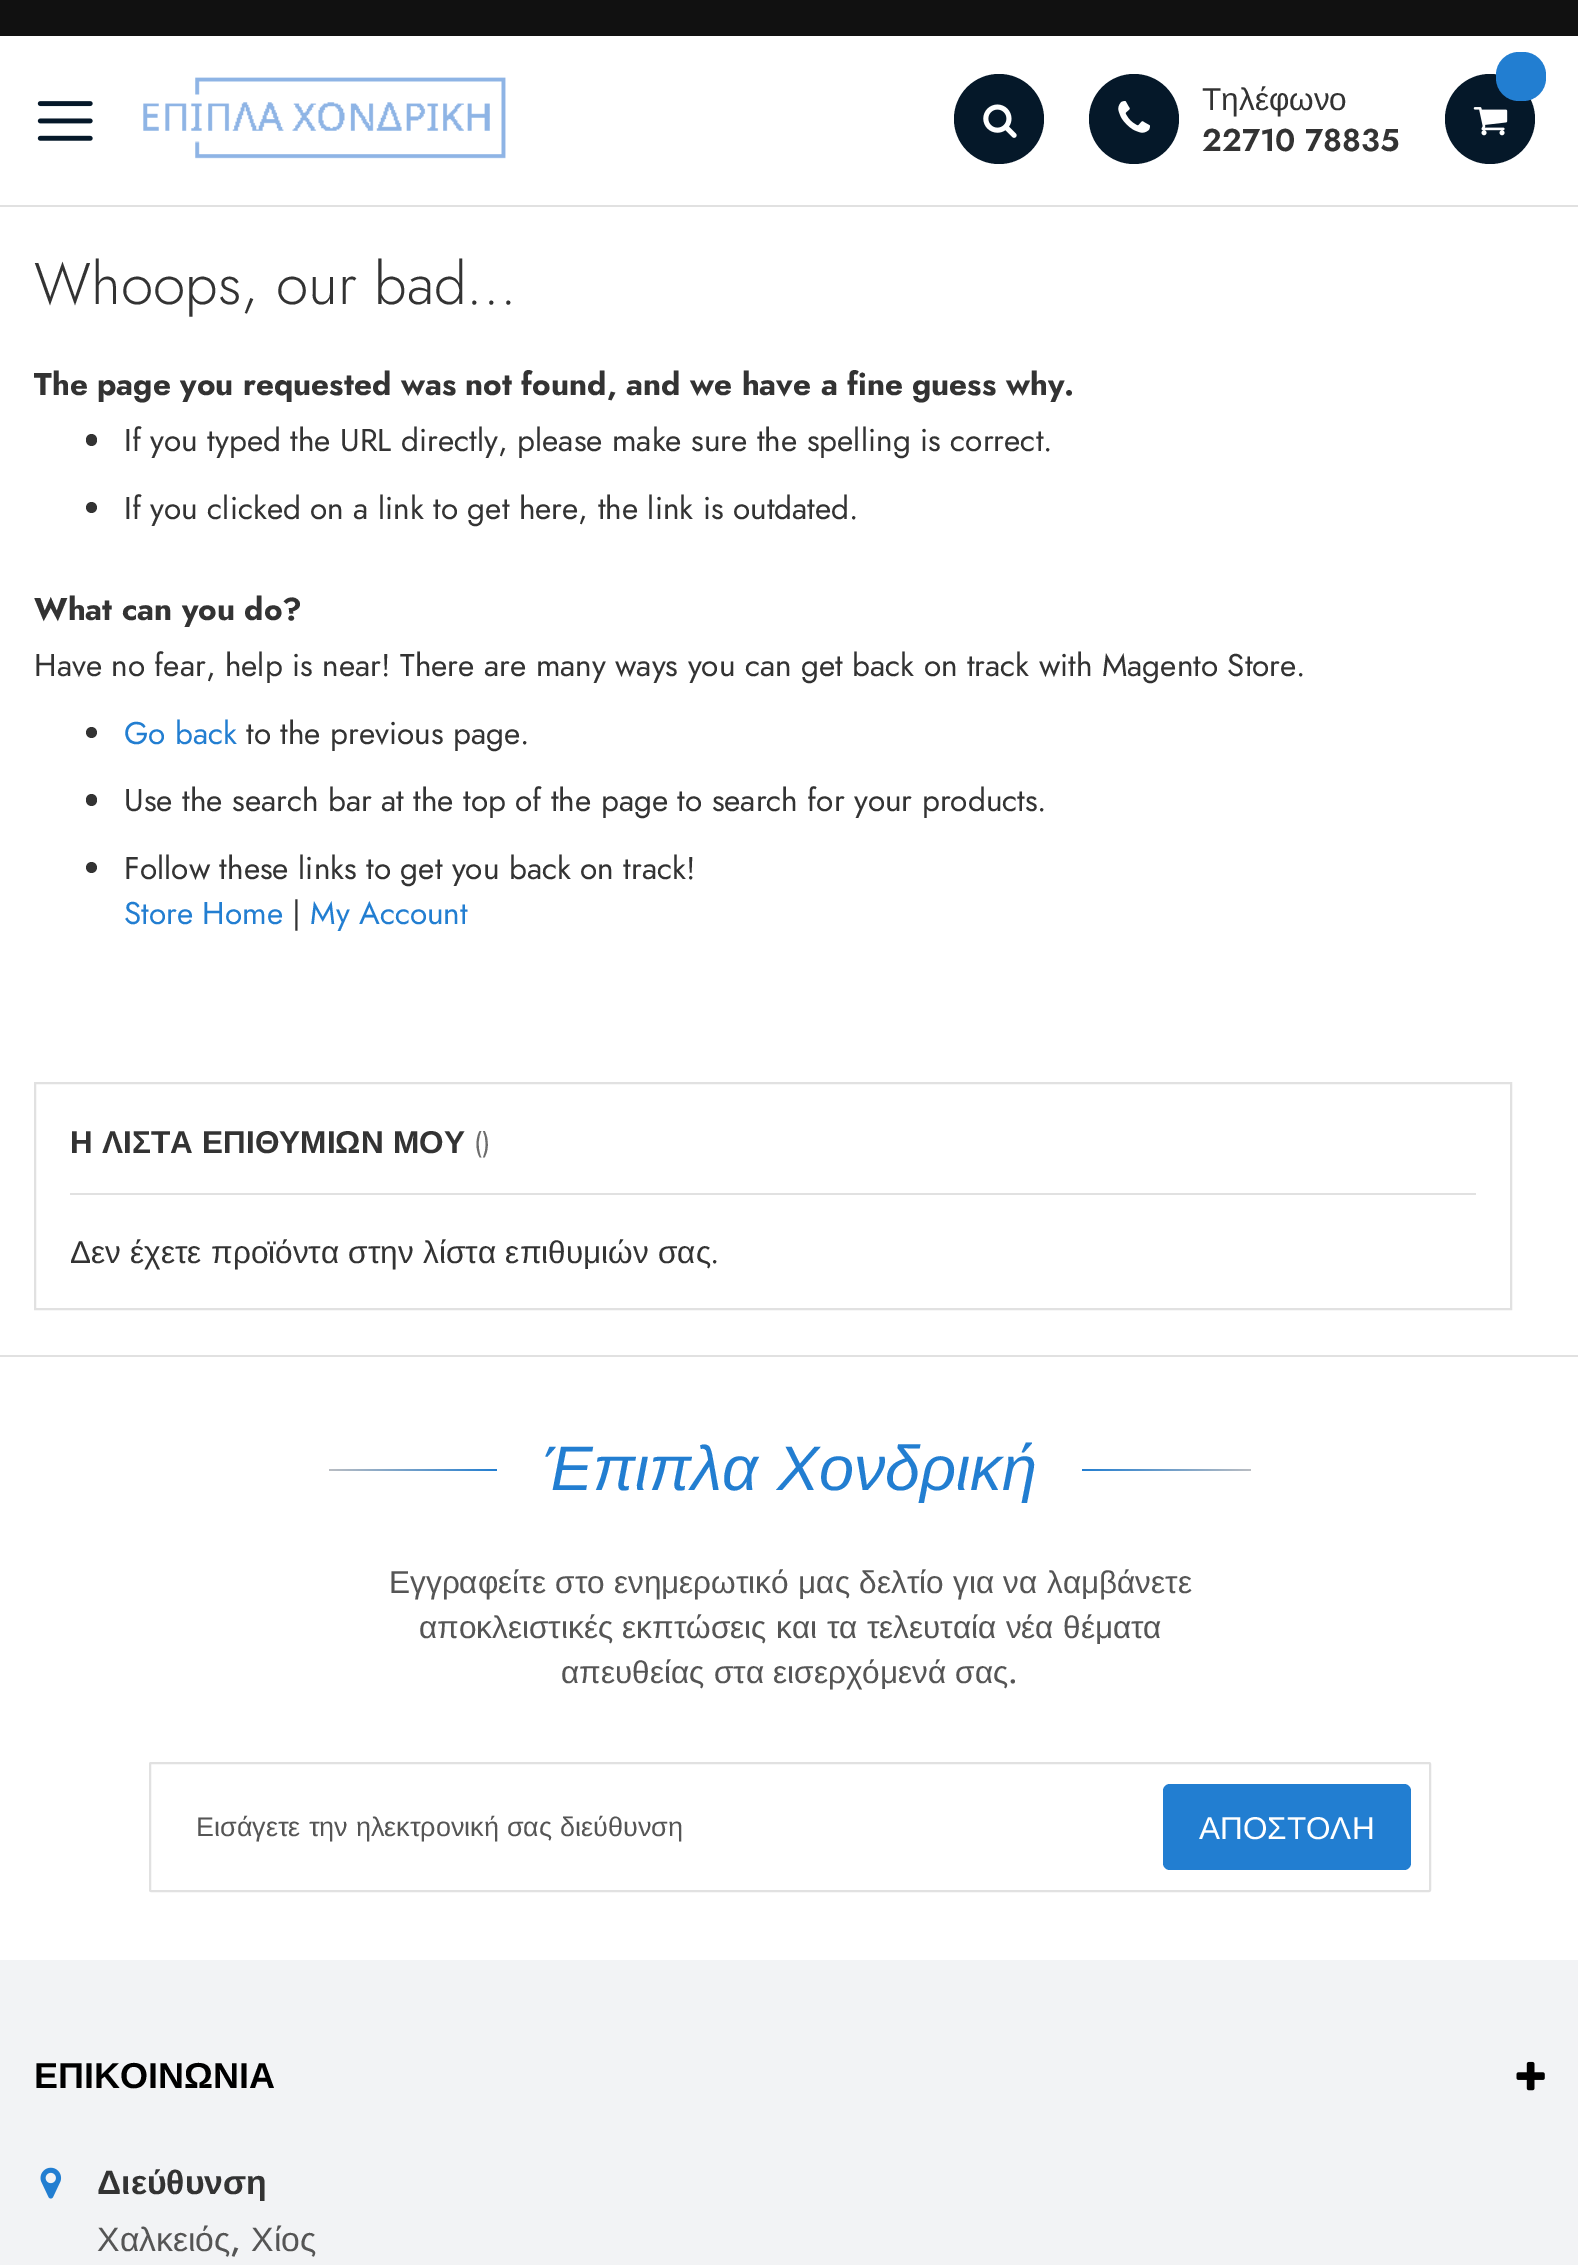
%!PS-Adobe-3.0
%%BoundingBox: 0 0 1578 2265
%%LanguageLevel: 3
%%Pages: 1
%%EndComments
%%BeginProlog
/rrect { 5 dict begin { /r /h /w /y /x } { exch def } forall
  x r add y moveto x w add y 2 copy h add r arct x w add y h add x 1 index r arct
  x y h add x y r arct x y 2 copy exch w add exch r arct closepath end } def
/drawimage { 5 dict begin { /h /w /y /x /name } { exch def } forall
  gsave x y translate w h scale
  w h 8 [w 0 0 h 0 0] name (r) file false 3 colorimage grestore end } def
%%EndProlog
%%BeginSetup
<< /PageSize [1578 2265] >> setpagedevice
%%EndSetup
%%Page: 1 1
0 2265 translate 1 -1 scale
4 setmiterlimit
1 setgray
0 0 1578 2265 rectfill
0.067 setgray
0 0 1578 36 rectfill
0.882 setgray
0 205 1578 2 rectfill
(images/1.raw) 37 101 56 40 drawimage
(images/2.raw) 143 77 363 82 drawimage
0.02 0.094 0.161 setrgbcolor
newpath 999 119 45 0 360 arc closepath fill
(images/3.raw) 983 104 34 34 drawimage
newpath 1134 119 45 0 360 arc closepath fill
(images/4.raw) 1118 101 32 32 drawimage
newpath 1490 119 45 0 360 arc closepath fill
0.133 0.494 0.82 setrgbcolor
1496 52 50 49 23 rrect fill
(images/5.raw) 1473 107 35 29 drawimage
0.2 setgray
86 434 11 12 5.5 rrect fill
newpath 91.5 507.5 5.5 0 360 arc closepath fill
newpath 91.5 732.5 5.5 0 360 arc closepath fill
86 794 11 12 5.5 rrect fill
newpath 91.5 867.5 5.5 0 360 arc closepath fill
0.882 setgray
2 setlinewidth
35 1083 1476 226 rectstroke
70 1193 1406 2 rectfill
0.949 0.953 0.961 setrgbcolor
0 1960 1578 305 rectfill
0.882 setgray
0 1355 1578 2 rectfill
gsave newpath 329 1469 moveto 497 1469 lineto 497 1471 lineto 329 1471 lineto closepath clip newpath
<< /ShadingType 2 /ColorSpace /DeviceRGB /Coords [329 1470 497 1470] /Extend [true true] /Function << /FunctionType 2 /Domain [0 1] /C0 [0.729 0.741 0.761] /C1 [0.133 0.494 0.82] /N 1 >> >> shfill grestore
gsave newpath 1082 1469 moveto 1251 1469 lineto 1251 1471 lineto 1082 1471 lineto closepath clip newpath
<< /ShadingType 2 /ColorSpace /DeviceRGB /Coords [1082 1470 1251 1470] /Extend [true true] /Function << /FunctionType 2 /Domain [0 1] /C0 [0.133 0.494 0.82] /C1 [0.729 0.741 0.761] /N 1 >> >> shfill grestore
150 1763 1280 128 1 rrect stroke
0.133 0.494 0.82 setrgbcolor
1163 1784 248 86 7 rrect fill
(images/6.raw) 1516 2061 29 30 drawimage
(images/7.raw) 40 2167 22 32 drawimage
/LiberationSans-Regular [31.5 0 0 -31.5 0 0] selectfont
0.2 setgray
1202 110 moveto (Τηλέφωνο) show
/Jost-SemiBold [31.5 0 0 -31.5 0 0] selectfont
1202 151 moveto (22710 78835) show
/Jost-Light [58.5 0 0 -58.5 0 0] selectfont
34 304 moveto (Whoops, our bad...) show
/Jost-Bold [31.5 0 0 -31.5 0 0] selectfont
34 395 moveto (The page you requested was not found, and we have a fine guess why.) show
/Jost-Regular [31.5 0 0 -31.5 0 0] selectfont
124 451 moveto (If you typed the URL directly, please make sure the spelling is correct.) show
124 519 moveto (If you clicked on a link to get here, the link is outdated.) show
/Jost-Bold [31.5 0 0 -31.5 0 0] selectfont
34 620 moveto (What can you do?) show
/Jost-Regular [31.5 0 0 -31.5 0 0] selectfont
34 676 moveto (Have no fear, help is near! There are many ways you can get back on track with Magento Store.) show
0.133 0.494 0.82 setrgbcolor
124 744 moveto (Go back) show
0.2 setgray
246 744 moveto (to the previous page.) show
124 811 moveto (Use the search bar at the top of the page to search for your products.) show
124 879 moveto (Follow these links to get you back on track!) show
0.133 0.494 0.82 setrgbcolor
124 924 moveto (Store Home) show
0.2 setgray
292 924 moveto (|) show
0.133 0.494 0.82 setrgbcolor
310 924 moveto (My Account) show
/LiberationSans-Bold [31.5 0 0 -31.5 0 0] selectfont
0.2 setgray
70 1153 moveto 0.75 0 32 (Η ΛΙΣΤΑ ΕΠΙΘΥΜΙΩΝ ΜΟΥ) widthshow
/Jost-Regular [27 0 0 -27 0 0] selectfont
0.427 setgray
474 1152 moveto (\(\)) show
/LiberationSans-Regular [31.5 0 0 -31.5 0 0] selectfont
0.2 setgray
70 1263 moveto 0.75 0 32 (Δεν έχετε προϊόντα στην λίστα επιθυμιών σας) widthshow
/Jost-Regular [31.5 0 0 -31.5 0 0] selectfont
710 1263 moveto (.) show
/LiberationSans-Italic [63 0 0 -63 0 0] selectfont
0.133 0.494 0.82 setrgbcolor
543 1490 moveto 1 0 32 (Έπιπλα Χονδρική) widthshow
/LiberationSans-Regular [31.5 0 0 -31.5 0 0] selectfont
0.333 setgray
389 1593 moveto 0.75 0 32 (Εγγραφείτε στο ενημερωτικό μας δελτίο για να λαμβάνετε) widthshow
419 1638 moveto 0.75 0 32 (αποκλειστικές εκπτώσεις και τα τελευταία νέα θέματα) widthshow
561 1683 moveto 0.75 0 32 (απευθείας στα εισερχόμενά σας) widthshow
/Jost-Medium [31.5 0 0 -31.5 0 0] selectfont
1008 1683 moveto (.) show
/LiberationSans-Regular [27 0 0 -27 0 0] selectfont
196 1836 moveto 0.5 0 32 (Εισάγετε την ηλεκτρονική σας διεύθυνση) widthshow
/LiberationSans-Regular [31.5 0 0 -31.5 0 0] selectfont
1 setgray
1199 1839 moveto (ΑΠΟΣΤΟΛΗ) show
/LiberationSans-Bold [36 0 0 -36 0 0] selectfont
0 setgray
34 2088 moveto (ΕΠΙΚΟΙΝΩΝΙΑ) show
/LiberationSans-Bold [33.75 0 0 -33.75 0 0] selectfont
0.2 setgray
97 2194 moveto (Διεύθυνση) show
/LiberationSans-Regular [33.75 0 0 -33.75 0 0] selectfont
0.333 setgray
97 2251 moveto (Χαλκειός) show
/Jost-Medium [33.75 0 0 -33.75 0 0] selectfont
230 2251 moveto (,) show
/LiberationSans-Regular [33.75 0 0 -33.75 0 0] selectfont
251 2251 moveto (Χίος) show
showpage
%%EOF
